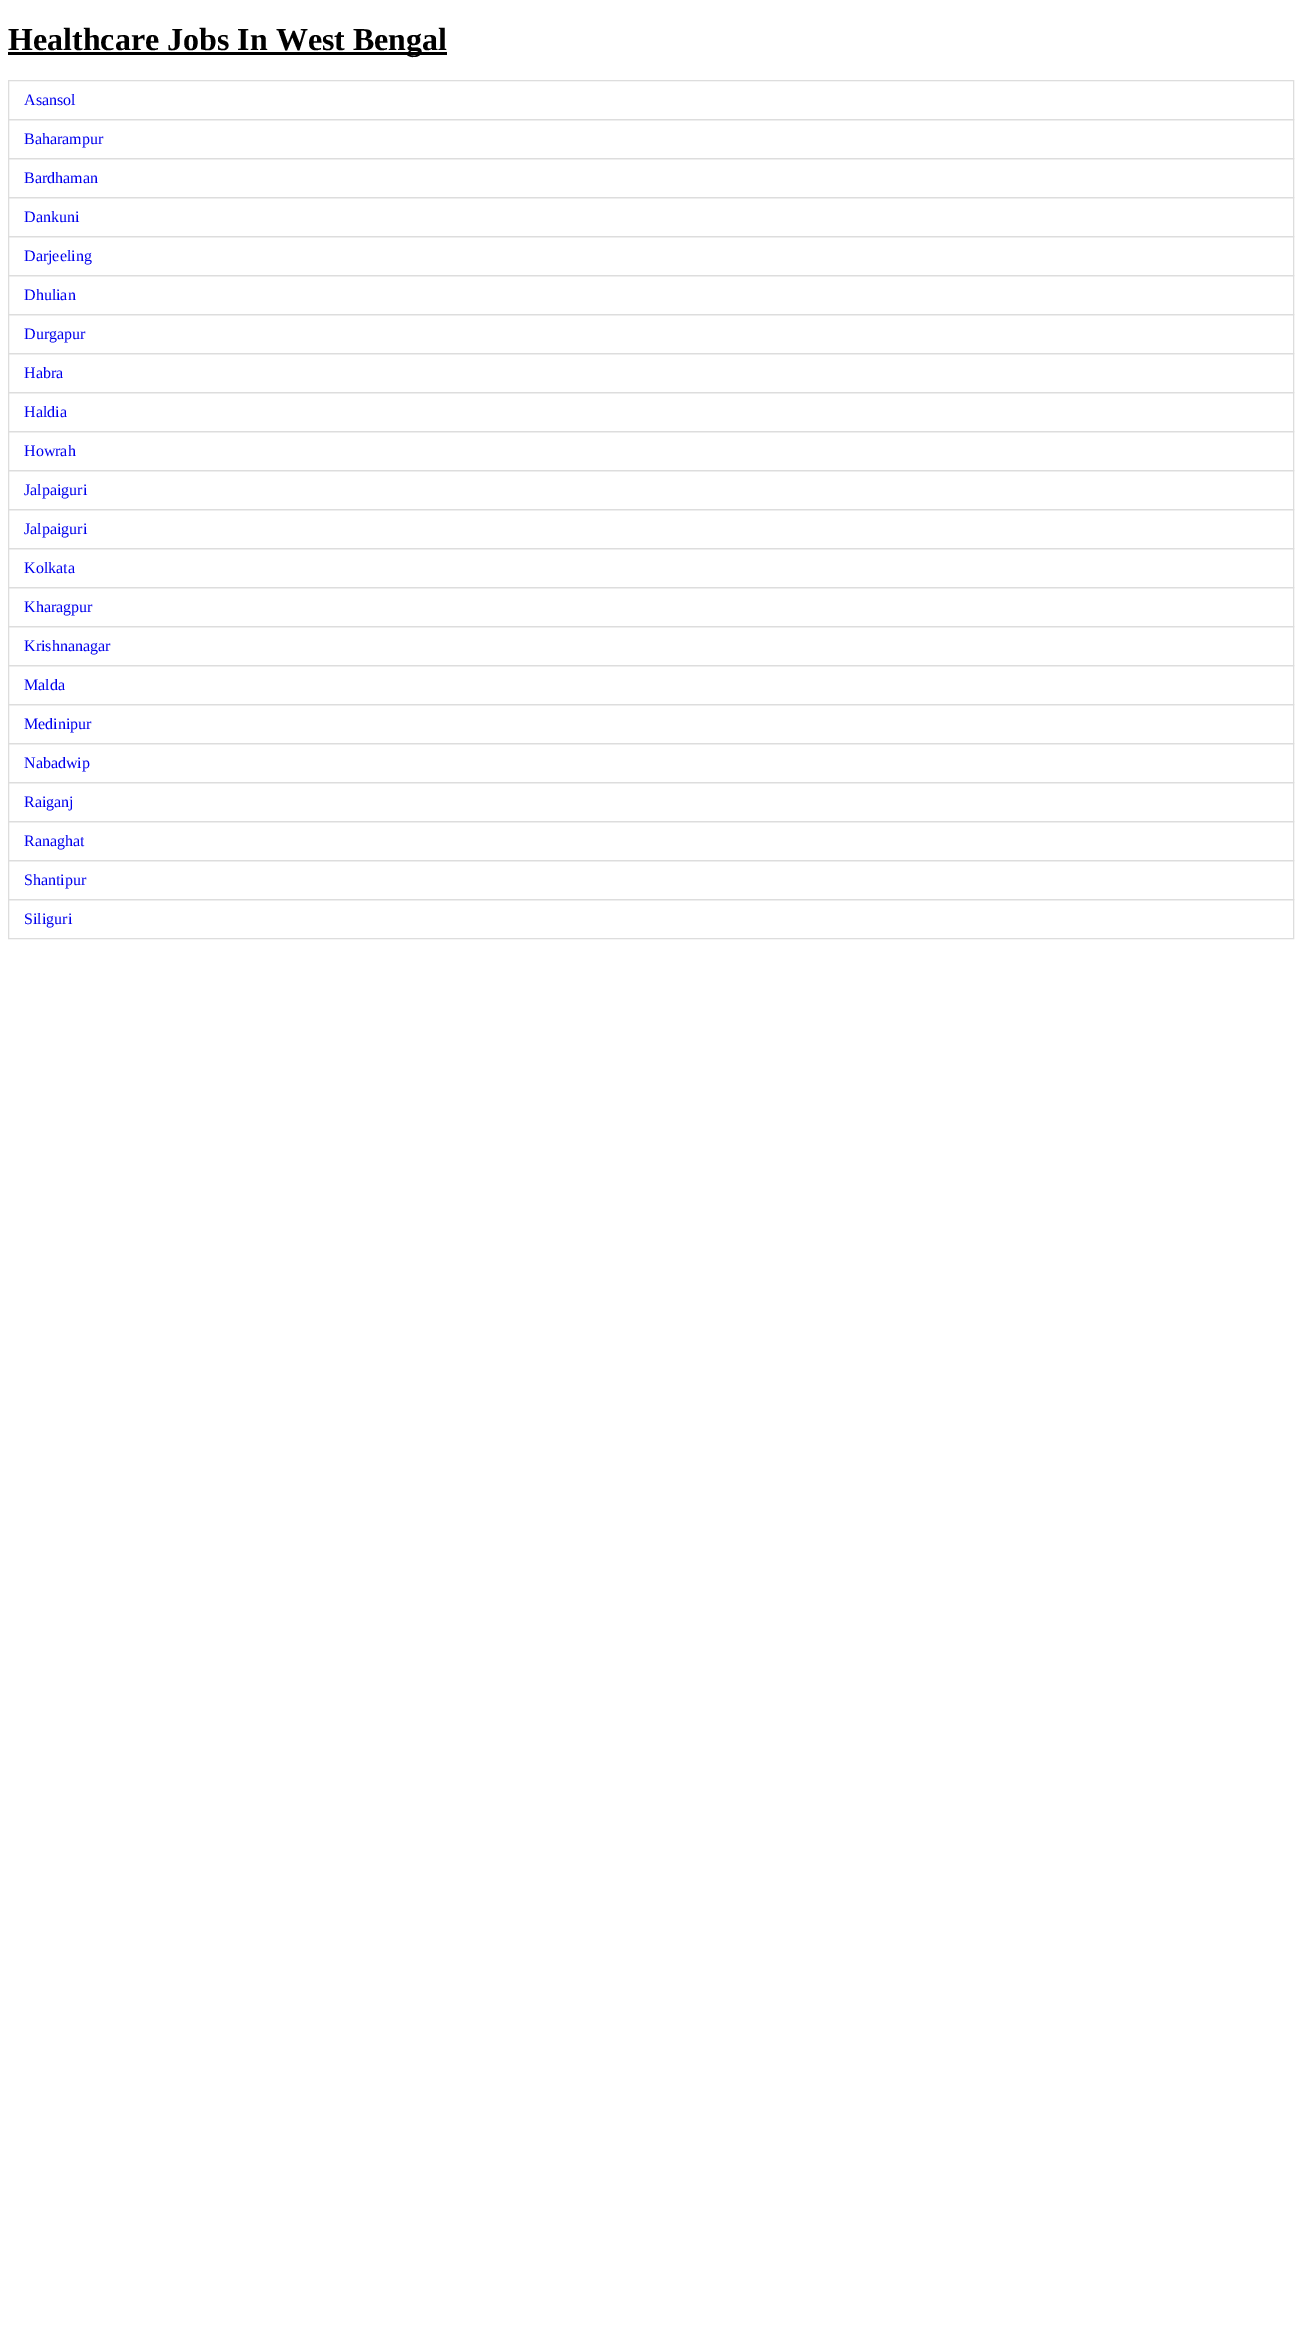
%!PS-Adobe-3.0
%%BoundingBox: 0 0 1302 2338
%%LanguageLevel: 3
%%Pages: 1
%%EndComments
%%BeginProlog
%%EndProlog
%%BeginSetup
<< /PageSize [1302 2338] >> setpagedevice
%%EndSetup
%%Page: 1 1
0 2338 translate 1 -1 scale
4 setmiterlimit
1 setgray
0 0 1302 2338 rectfill
0 setgray
8 52 439 3 rectfill
0.867 setgray
8.5 80.5 1285 39 rectstroke
8.5 119.5 1285 39 rectstroke
8.5 158.5 1285 39 rectstroke
8.5 197.5 1285 39 rectstroke
8.5 236.5 1285 39 rectstroke
8.5 275.5 1285 39 rectstroke
8.5 314.5 1285 39 rectstroke
8.5 353.5 1285 39 rectstroke
8.5 392.5 1285 39 rectstroke
8.5 431.5 1285 39 rectstroke
8.5 470.5 1285 39 rectstroke
8.5 509.5 1285 39 rectstroke
8.5 548.5 1285 39 rectstroke
8.5 587.5 1285 39 rectstroke
8.5 626.5 1285 39 rectstroke
8.5 665.5 1285 39 rectstroke
8.5 704.5 1285 39 rectstroke
8.5 743.5 1285 39 rectstroke
8.5 782.5 1285 39 rectstroke
8.5 821.5 1285 39 rectstroke
8.5 860.5 1285 39 rectstroke
8.5 899.5 1285 39 rectstroke
/LiberationSerif-Bold [32 0 0 -32 0 0] selectfont
0 setgray
8 50 moveto (Healthcare Jobs In West Bengal) show
/LiberationSerif-Regular [16 0 0 -16 0 0] selectfont
0 0 0.933 setrgbcolor
24 105 moveto (Asansol) show
24 144 moveto (Baharampur) show
24 183 moveto (Bardhaman) show
24 222 moveto (Dankuni) show
24 261 moveto (Darjeeling) show
24 300 moveto (Dhulian) show
24 339 moveto (Durgapur) show
24 378 moveto (Habra) show
24 417 moveto (Haldia) show
24 456 moveto (Howrah) show
24 495 moveto (Jalpaiguri) show
24 534 moveto (Jalpaiguri) show
24 573 moveto (Kolkata) show
24 612 moveto (Kharagpur) show
24 651 moveto (Krishnanagar) show
24 690 moveto (Malda) show
24 729 moveto (Medinipur) show
24 768 moveto (Nabadwip) show
24 807 moveto (Raiganj) show
24 846 moveto (Ranaghat) show
24 885 moveto (Shantipur) show
24 924 moveto (Siliguri) show
showpage
%%EOF
